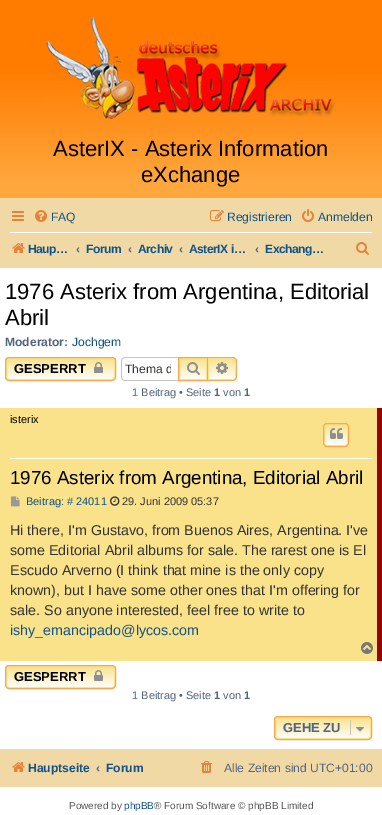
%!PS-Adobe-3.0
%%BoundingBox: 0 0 382 815
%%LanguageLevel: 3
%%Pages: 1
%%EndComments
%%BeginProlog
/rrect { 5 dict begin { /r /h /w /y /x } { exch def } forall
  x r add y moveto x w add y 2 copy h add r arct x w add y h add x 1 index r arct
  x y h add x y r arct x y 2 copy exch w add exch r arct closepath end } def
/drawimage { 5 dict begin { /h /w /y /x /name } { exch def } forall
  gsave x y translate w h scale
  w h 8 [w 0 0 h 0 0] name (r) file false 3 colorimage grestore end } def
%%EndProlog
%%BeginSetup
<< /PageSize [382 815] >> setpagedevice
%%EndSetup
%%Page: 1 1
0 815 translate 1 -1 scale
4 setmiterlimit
1 setgray
0 0 382 815 rectfill
gsave newpath 0 0 moveto 382 0 lineto 382 198 lineto 0 198 lineto closepath clip newpath
<< /ShadingType 2 /ColorSpace /DeviceRGB /Coords [191 0 191 199] /Extend [true true] /Function << /FunctionType 3 /Domain [0 1] /Functions [<< /FunctionType 2 /Domain [0 1] /C0 [1 0.486 0] /C1 [1 0.486 0] /N 1 >> << /FunctionType 2 /Domain [0 1] /C0 [1 0.486 0] /C1 [1 0.655 0.239] /N 1 >> << /FunctionType 2 /Domain [0 1] /C0 [1 0.655 0.239] /C1 [1 0.655 0.239] /N 1 >>] /Bounds [0.35 0.91] /Encode [0 1 0 1 0 1] >> >> shfill grestore
(images/1.raw) 46 15 289 104 drawimage
0.941 0.851 0.647 setrgbcolor
0 198 382 70 rectfill
(images/2.raw) 12 211 12 10 drawimage
(images/3.raw) 35 210 12 12 drawimage
(images/4.raw) 210 210 14 11 drawimage
(images/5.raw) 302 209 12 13 drawimage
1 setgray
10 232 362 1 rectfill
(images/6.raw) 12 243 13 10 drawimage
(images/7.raw) 356 242 13 13 drawimage
gsave
5 357 111 24 4 rrect clip newpath
gsave newpath 5 358 moveto 116 358 lineto 116 380 lineto 5 380 lineto closepath clip newpath
<< /ShadingType 2 /ColorSpace /DeviceRGB /Coords [61 358 61 380] /Extend [true true] /Function << /FunctionType 2 /Domain [0 1] /C0 [0.976 0.886 0.537] /C1 [1 1 1] /N 1 >> >> shfill grestore
grestore
0.976 0.886 0.537 setrgbcolor
6.5 358.5 108 21 2.5 rrect stroke
1 0.651 0.302 setrgbcolor
5.5 357.5 110 23 3.5 rrect stroke
(images/8.raw) 94 362 9 11 drawimage
0.78 0.765 0.749 setrgbcolor
newpath 125 357 moveto 178 357 lineto 178 381 lineto 125 381 lineto 123 381 121 379 121 377 curveto 121 361 lineto 121 359 123 357 125 357 curveto closepath 125 358 moveto 178 358 lineto 178 380 lineto 125 380 lineto 123 380 122 379 122 377 curveto 122 361 lineto 122 359 123 358 125 358 curveto closepath eofill
gsave newpath 180 359 moveto 206 359 lineto 206 379 lineto 180 379 lineto closepath clip newpath
<< /ShadingType 2 /ColorSpace /DeviceRGB /Coords [193 358 193 380] /Extend [true true] /Function << /FunctionType 2 /Domain [0 1] /C0 [0.976 0.886 0.537] /C1 [1 1 1] /N 1 >> >> shfill grestore
0.976 0.886 0.537 setrgbcolor
179.5 358.5 27 21 rectstroke
1 0.651 0.302 setrgbcolor
178.5 357.5 29 23 rectstroke
(images/9.raw) 187 362 13 13 drawimage
gsave newpath 208.5 358.5 moveto 233 358.5 lineto 234.5 358.5 235.5 359.5 235.5 361 curveto 235.5 377 lineto 235.5 378.5 234.5 379.5 233 379.5 curveto 208.5 379.5 lineto closepath clip newpath
<< /ShadingType 2 /ColorSpace /DeviceRGB /Coords [222 358 222 380] /Extend [true true] /Function << /FunctionType 2 /Domain [0 1] /C0 [0.976 0.886 0.537] /C1 [1 1 1] /N 1 >> >> shfill grestore
0.976 0.886 0.537 setrgbcolor
newpath 208.5 358.5 moveto 233 358.5 lineto 234.5 358.5 235.5 359.5 235.5 361 curveto 235.5 377 lineto 235.5 378.5 234.5 379.5 233 379.5 curveto 208.5 379.5 lineto closepath stroke
1 0.651 0.302 setrgbcolor
newpath 208 357 moveto 233 357 lineto 235 357 237 359 237 361 curveto 237 377 lineto 237 379 235 381 233 381 curveto 208 381 lineto closepath 208 358 moveto 233 358 lineto 234.5 358 236 359.5 236 361 curveto 236 377 lineto 236 378.5 234.5 380 233 380 curveto 208 380 lineto closepath eofill
(images/10.raw) 216 362 12 12 drawimage
0.976 0.886 0.537 setrgbcolor
0 408 377 253 rectfill
0.612 0 0.012 setrgbcolor
377 408 5 253 rectfill
1 setgray
10 458 362 1 rectfill
gsave
323 423 26 24 4 rrect clip newpath
gsave newpath 323 424 moveto 349 424 lineto 349 446 lineto 323 446 lineto closepath clip newpath
<< /ShadingType 2 /ColorSpace /DeviceRGB /Coords [336 424 336 446] /Extend [true true] /Function << /FunctionType 2 /Domain [0 1] /C0 [0.976 0.886 0.537] /C1 [1 1 1] /N 1 >> >> shfill grestore
grestore
0.976 0.886 0.537 setrgbcolor
324.5 424.5 23 21 2.5 rrect stroke
1 0.651 0.302 setrgbcolor
323.5 423.5 25 23 3.5 rrect stroke
(images/11.raw) 330 428 13 11 drawimage
(images/12.raw) 11 496 9 11 drawimage
(images/13.raw) 110 496 10 10 drawimage
(images/14.raw) 361 642 12 12 drawimage
gsave
5 665 111 24 4 rrect clip newpath
gsave newpath 5 666 moveto 116 666 lineto 116 688 lineto 5 688 lineto closepath clip newpath
<< /ShadingType 2 /ColorSpace /DeviceRGB /Coords [61 666 61 688] /Extend [true true] /Function << /FunctionType 2 /Domain [0 1] /C0 [0.976 0.886 0.537] /C1 [1 1 1] /N 1 >> >> shfill grestore
grestore
0.976 0.886 0.537 setrgbcolor
6.5 666.5 108 21 2.5 rrect stroke
1 0.651 0.302 setrgbcolor
5.5 665.5 110 23 3.5 rrect stroke
(images/8.raw) 94 670 9 11 drawimage
gsave
274 716 98 24 4 rrect clip newpath
gsave newpath 274 717 moveto 372 717 lineto 372 739 lineto 274 739 lineto closepath clip newpath
<< /ShadingType 2 /ColorSpace /DeviceRGB /Coords [323 717 323 739] /Extend [true true] /Function << /FunctionType 2 /Domain [0 1] /C0 [0.976 0.886 0.537] /C1 [1 1 1] /N 1 >> >> shfill grestore
grestore
0.976 0.886 0.537 setrgbcolor
275.5 717.5 95 21 2.5 rrect stroke
1 0.651 0.302 setrgbcolor
274.5 716.5 97 23 3.5 rrect stroke
0.78 0.765 0.749 setrgbcolor
350 720 1 15 rectfill
(images/15.raw) 356 727 8 5 drawimage
0.941 0.851 0.647 setrgbcolor
0 749 382 38 rectfill
(images/6.raw) 12 762 13 10 drawimage
(images/16.raw) 201 761 11 12 drawimage
/LiberationSans-Regular [22 0 0 -22 0 0] selectfont
0 setgray
53 156 moveto (AsterIX - Asterix Information) show
141 182 moveto (eXchange) show
/LiberationSans-Regular [12.1 0 0 -12.1 0 0] selectfont
0.063 0.322 0.537 setrgbcolor
51 221 moveto (FAQ) show
227 221 moveto (Registrieren) show
318 221 moveto (Anmelden) show
/LiberationSans-Bold [12.1 0 0 -12.1 0 0] selectfont
28 253 moveto -0.5 0 (Haup…) ashow
0.325 0.392 0.51 setrgbcolor
76 253 moveto (‹) show
0.063 0.322 0.537 setrgbcolor
86 253 moveto -0.5 0 (Forum) ashow
0.325 0.392 0.51 setrgbcolor
128 253 moveto (‹) show
0.063 0.322 0.537 setrgbcolor
138 253 moveto -0.5 0 (Archiv) ashow
0.325 0.392 0.51 setrgbcolor
179 253 moveto (‹) show
0.063 0.322 0.537 setrgbcolor
189 253 moveto -0.5 0 (AsterIX i…) ashow
0.325 0.392 0.51 setrgbcolor
255 253 moveto (‹) show
0.063 0.322 0.537 setrgbcolor
265 253 moveto -0.5 0 (Exchang…) ashow
/LiberationSans-Regular [22 0 0 -22 0 0] selectfont
0 setgray
5 299 moveto (1976 Asterix from Argentina, Editorial) show
5 325 moveto (Abril) show
/LiberationSans-Bold [12.1 0 0 -12.1 0 0] selectfont
0.325 0.392 0.51 setrgbcolor
5 346 moveto (Moderator:) show
/LiberationSans-Regular [12.1 0 0 -12.1 0 0] selectfont
0.063 0.322 0.537 setrgbcolor
72 346 moveto (Jochgem) show
/LiberationSans-Bold [13 0 0 -13 0 0] selectfont
0 setgray
14 373 moveto (GESPERRT) show
gsave
125 362 46 14 rectclip
/LiberationSans-Regular [12.1 0 0 -12.1 0 0] selectfont
0.2 setgray
125 373 moveto (Thema d) show
grestore
/LiberationSans-Regular [11 0 0 -11 0 0] selectfont
0.325 0.392 0.51 setrgbcolor
132 396 moveto (1 Beitrag • Seite) show
/LiberationSans-Bold [11 0 0 -11 0 0] selectfont
214 396 moveto (1) show
/LiberationSans-Regular [11 0 0 -11 0 0] selectfont
223 396 moveto (von) show
/LiberationSans-Bold [11 0 0 -11 0 0] selectfont
244 396 moveto (1) show
/LiberationSans-Regular [11 0 0 -11 0 0] selectfont
0 setgray
10 423 moveto (isterix) show
/LiberationSans-Regular [18.75 0 0 -18.75 0 0] selectfont
10 484 moveto (1976 Asterix from Argentina, Editorial Abril) show
/LiberationSans-Regular [11 0 0 -11 0 0] selectfont
0.063 0.322 0.537 setrgbcolor
26 505 moveto (Beitrag: # 24011) show
0.2 setgray
122 505 moveto (29. Juni 2009 05:37) show
/LiberationSans-Regular [14.3 0 0 -14.3 0 0] selectfont
10 535 moveto (Hi there, I'm Gustavo, from Buenos Aires, Argentina. I've) show
10 555 moveto (some Editorial Abril albums for sale. The rarest one is El) show
10 575 moveto (Escudo Arverno \(I think that mine is the only copy) show
10 595 moveto (known\), but I have some other ones that I'm offering for) show
10 615 moveto (sale. So anyone interested, feel free to write to) show
0.063 0.322 0.537 setrgbcolor
10 635 moveto (ishy_emancipado@lycos.com) show
/LiberationSans-Bold [13 0 0 -13 0 0] selectfont
0 setgray
14 681 moveto (GESPERRT) show
/LiberationSans-Regular [11 0 0 -11 0 0] selectfont
0.325 0.392 0.51 setrgbcolor
132 699 moveto (1 Beitrag • Seite) show
/LiberationSans-Bold [11 0 0 -11 0 0] selectfont
214 699 moveto (1) show
/LiberationSans-Regular [11 0 0 -11 0 0] selectfont
223 699 moveto (von) show
/LiberationSans-Bold [11 0 0 -11 0 0] selectfont
244 699 moveto (1) show
/LiberationSans-Bold [13 0 0 -13 0 0] selectfont
283 732 moveto (GEHE ZU) show
/LiberationSans-Bold [12.1 0 0 -12.1 0 0] selectfont
0.063 0.322 0.537 setrgbcolor
28 772 moveto (Hauptseite) show
0.325 0.392 0.51 setrgbcolor
96 772 moveto (‹) show
0.063 0.322 0.537 setrgbcolor
106 772 moveto (Forum) show
/LiberationSans-Regular [12.1 0 0 -12.1 0 0] selectfont
0.325 0.392 0.51 setrgbcolor
224 772 moveto (Alle Zeiten sind UTC+01:00) show
/LiberationSans-Regular [10 0 0 -10 0 0] selectfont
0.333 setgray
69 809 moveto (Powered by) show
0.063 0.322 0.537 setrgbcolor
124 809 moveto (phpBB) show
0.333 setgray
154 809 moveto (® Forum Software © phpBB Limited) show
showpage
%%EOF
